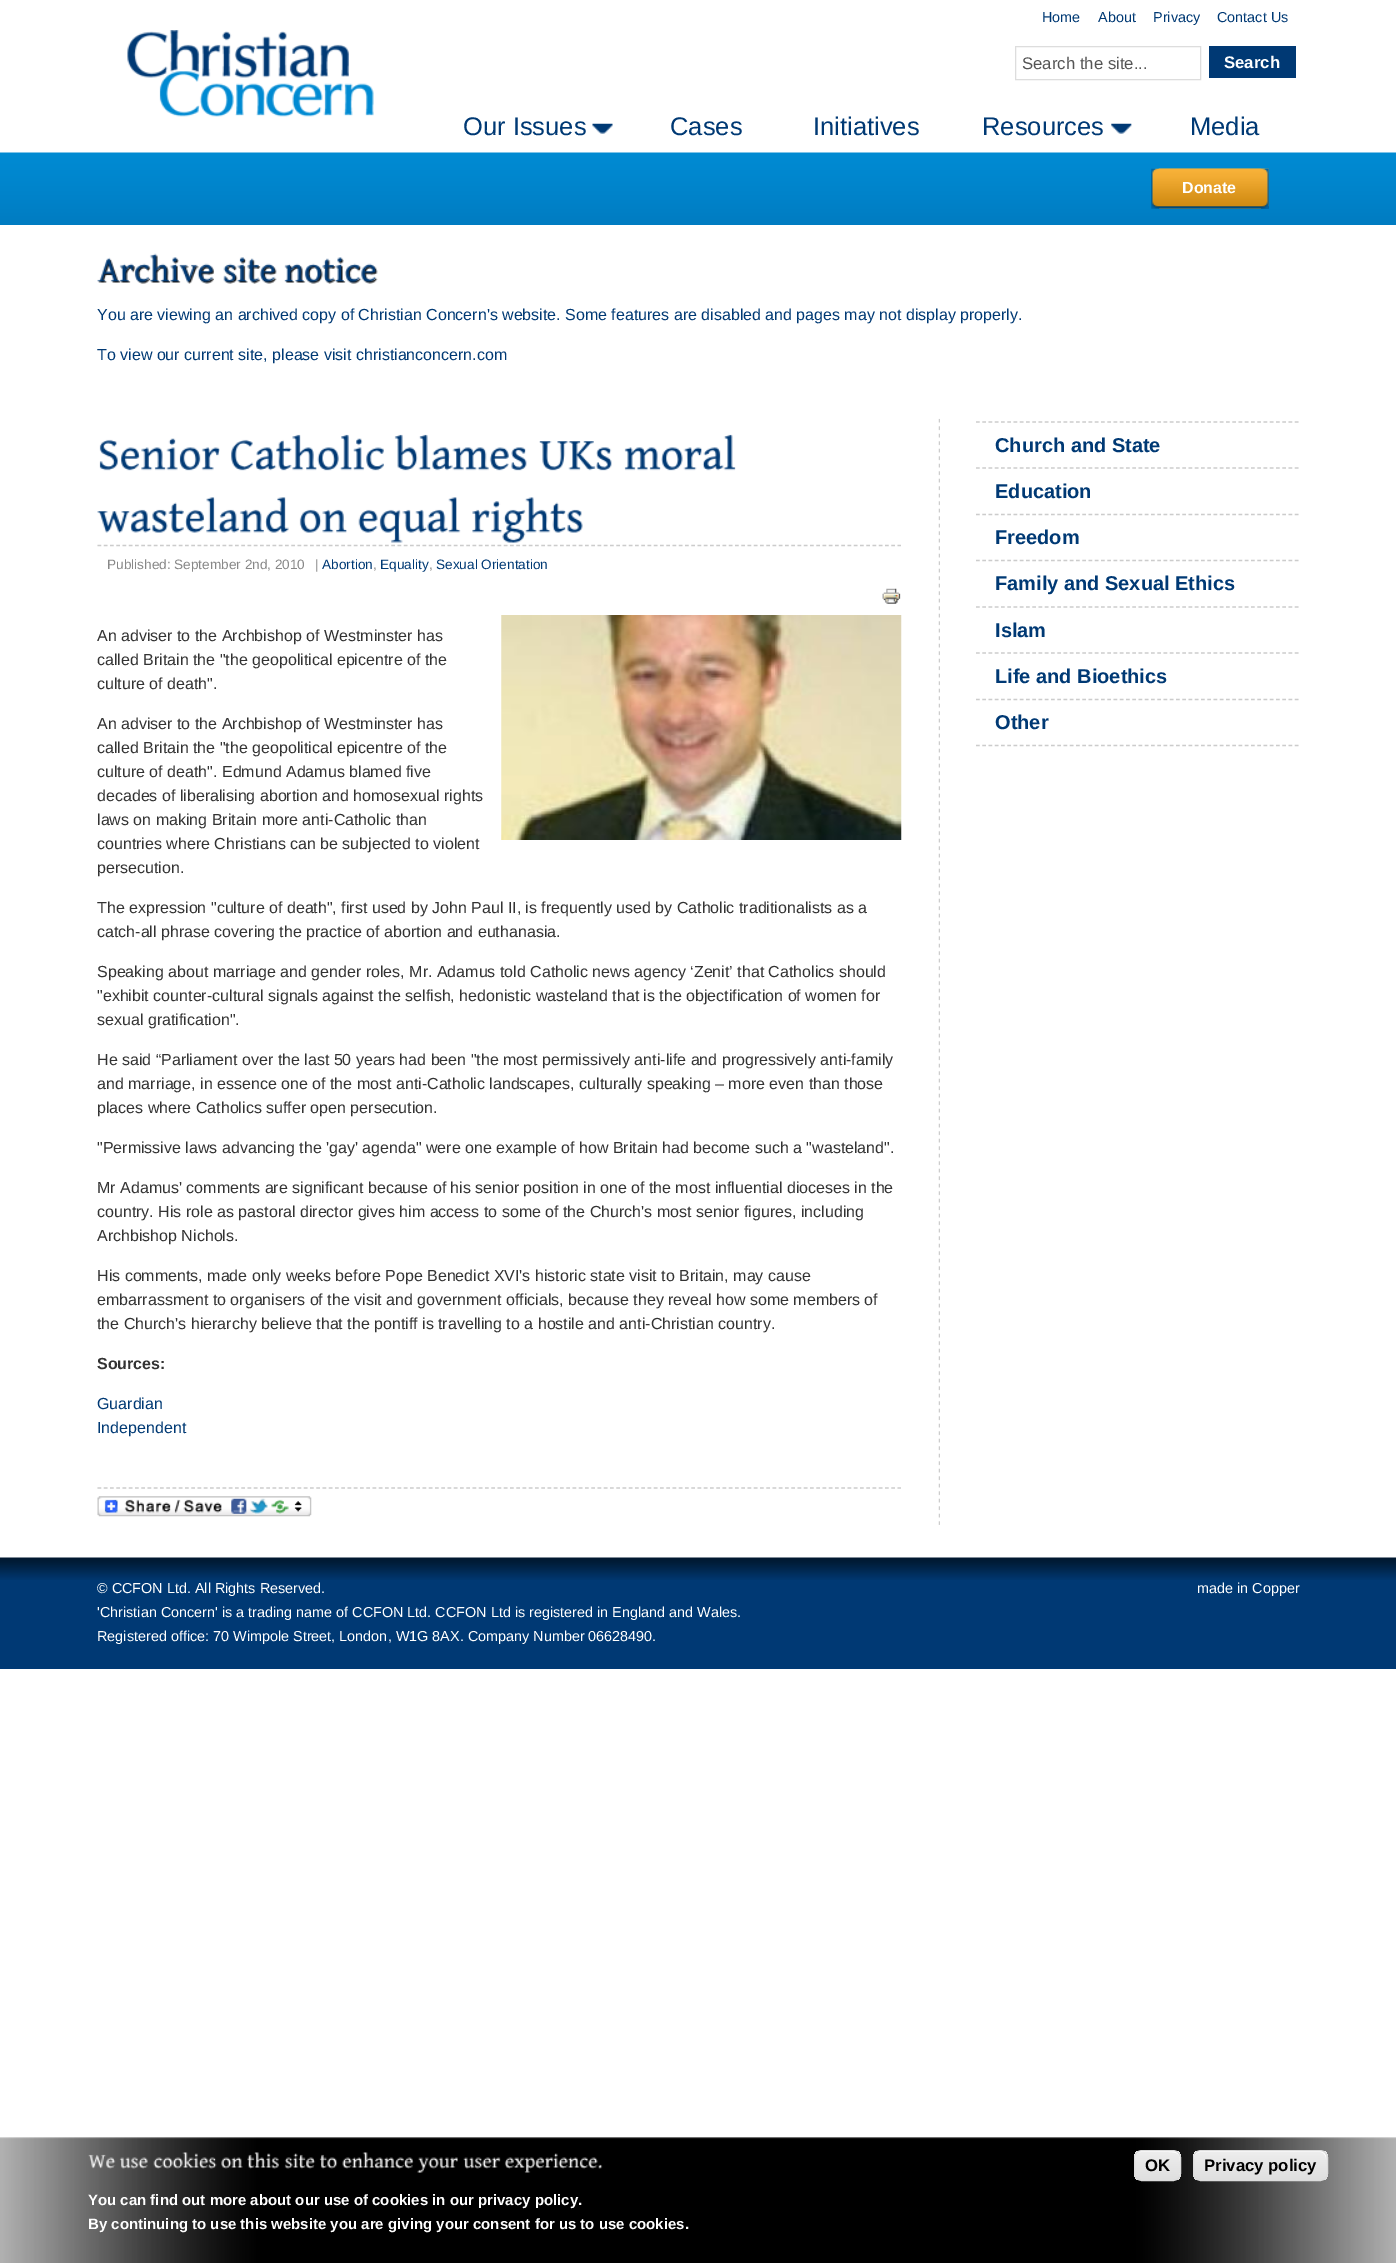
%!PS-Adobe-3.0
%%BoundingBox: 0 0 1396 2263
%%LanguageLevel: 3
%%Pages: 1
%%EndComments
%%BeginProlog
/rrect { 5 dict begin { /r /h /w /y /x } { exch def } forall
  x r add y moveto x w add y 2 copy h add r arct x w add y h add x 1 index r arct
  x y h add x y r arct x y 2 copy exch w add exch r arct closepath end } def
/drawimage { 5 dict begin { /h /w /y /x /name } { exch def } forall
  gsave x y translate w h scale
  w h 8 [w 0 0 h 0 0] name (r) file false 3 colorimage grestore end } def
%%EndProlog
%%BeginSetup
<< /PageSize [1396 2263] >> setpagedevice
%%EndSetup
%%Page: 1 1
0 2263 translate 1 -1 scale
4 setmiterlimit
1 setgray
0 0 1396 2263 rectfill
0.867 setgray
1015.5 46.5 185 33 rectstroke
0 0.224 0.455 setrgbcolor
1209 46 87 32 rectfill
(images/1.raw) 127 30 247 87 drawimage
(images/2.raw) 592 123 21 11 drawimage
(images/3.raw) 1111 123 21 11 drawimage
(images/4.raw) 0 152 1396 73 drawimage
(images/5.raw) 1151 168 118 41 drawimage
(images/6.raw) 1158 168 111 41 drawimage
(images/7.raw) 1158 168 104 41 drawimage
(images/8.raw) 97 253 117 31 drawimage
(images/9.raw) 223 257 54 27 drawimage
(images/10.raw) 284 257 94 27 drawimage
(images/11.raw) 938 418 2 1107 drawimage
0.8 setgray
1.2 setlinewidth
[3.75 2.5] 0 setdash
newpath 97.5 545.5 moveto 901 545.5 lineto stroke
(images/12.raw) 99 438 121 33 drawimage
(images/13.raw) 231 434 153 37 drawimage
(images/14.raw) 394 434 133 37 drawimage
(images/15.raw) 539 441 73 30 drawimage
(images/16.raw) 624 434 112 37 drawimage
(images/17.raw) 97 497 192 36 drawimage
(images/18.raw) 299 509 48 24 drawimage
(images/19.raw) 358 497 103 46 drawimage
(images/20.raw) 472 497 111 46 drawimage
(images/21.raw) 882 588 19 16 drawimage
(images/22.raw) 501 615 401 225 drawimage
newpath 97.5 1488 moveto 901 1488 lineto stroke
(images/23.raw) 97 1496 215 21 drawimage
newpath 976 422 moveto 1299 422 lineto stroke
newpath 976 468 moveto 1299 468 lineto stroke
newpath 976 514.5 moveto 1299 514.5 lineto stroke
newpath 976 560.5 moveto 1299 560.5 lineto stroke
newpath 976 607 moveto 1299 607 lineto stroke
newpath 976 653 moveto 1299 653 lineto stroke
newpath 976 699.5 moveto 1299 699.5 lineto stroke
newpath 976 745.5 moveto 1299 745.5 lineto stroke
0 0.224 0.455 setrgbcolor
0 1580 1396 89 rectfill
(images/24.raw) 0 1557 1396 23 drawimage
(images/25.raw) 0 2137 1396 126 drawimage
gsave
1134 2150 47 31 8 rrect clip newpath
gsave newpath 1134 2151 moveto 1181 2151 lineto 1181 2180 lineto 1134 2180 lineto closepath clip newpath
<< /ShadingType 2 /ColorSpace /DeviceRGB /Coords [1135 2151 1135 2180] /Extend [true true] /Function << /FunctionType 3 /Domain [0 1] /Functions [<< /FunctionType 2 /Domain [0 1] /C0 [0.929 0.929 0.929] /C1 [0.929 0.929 0.929] /N 1 >> << /FunctionType 2 /Domain [0 1] /C0 [0.929 0.929 0.929] /C1 [0.875 0.875 0.875] /N 1 >>] /Bounds [0.05] /Encode [0 1 0 1] >> >> shfill grestore
grestore
1 setgray
newpath 1141 2152 moveto 1168 2152 lineto 1178 2152 1180 2154 1180 2161 curveto 1180 2151 1178 2151 1168 2151 curveto 1146 2151 lineto 1137 2151 1135 2151 1135 2161 curveto 1135 2156 1136 2152 1141 2152 curveto closepath 1180 2173 moveto 1179 2176 lineto closepath 1135 2175 moveto 1135 2173 lineto closepath eofill
0.863 setgray
1 setlinewidth
[] 0 setdash
1134.5 2150.5 46 30 7.5 rrect stroke
gsave
1193 2150 135 31 8 rrect clip newpath
gsave newpath 1193 2151 moveto 1328 2151 lineto 1328 2180 lineto 1193 2180 lineto closepath clip newpath
<< /ShadingType 2 /ColorSpace /DeviceRGB /Coords [1194 2151 1194 2180] /Extend [true true] /Function << /FunctionType 3 /Domain [0 1] /Functions [<< /FunctionType 2 /Domain [0 1] /C0 [0.929 0.929 0.929] /C1 [0.929 0.929 0.929] /N 1 >> << /FunctionType 2 /Domain [0 1] /C0 [0.929 0.929 0.929] /C1 [0.875 0.875 0.875] /N 1 >>] /Bounds [0.05] /Encode [0 1 0 1] >> >> shfill grestore
grestore
1 setgray
newpath 1200 2152 moveto 1320 2152 lineto 1323 2152 1326 2155 1326 2159 curveto 1326 2157 lineto 1326 2154 1323 2151 1320 2151 curveto 1200 2151 lineto 1197 2151 1194 2154 1194 2157 curveto 1194 2159 lineto 1194 2155 1197 2152 1200 2152 curveto closepath fill
0.863 setgray
1193.5 2150.5 134 30 7.5 rrect stroke
(images/26.raw) 88 2154 28 15 drawimage
(images/27.raw) 119 2157 29 12 drawimage
(images/28.raw) 153 2152 64 17 drawimage
(images/29.raw) 221 2157 22 12 drawimage
(images/30.raw) 247 2152 32 17 drawimage
(images/31.raw) 284 2153 32 16 drawimage
(images/32.raw) 319 2154 19 15 drawimage
(images/33.raw) 342 2152 72 17 drawimage
(images/34.raw) 417 2157 41 16 drawimage
(images/35.raw) 463 2157 38 12 drawimage
(images/36.raw) 504 2153 99 20 drawimage
/LiberationSans-Regular [14.4 0 0 -14.4 0 0] selectfont
0 0.224 0.455 setrgbcolor
1042 22 moveto (Home) show
1098 22 moveto (About) show
1153 22 moveto (Privacy) show
1217 22 moveto (Contact Us) show
/LiberationSans-Regular [16.75 0 0 -16.75 0 0] selectfont
0.333 setgray
1022 69 moveto (Search the site...) show
/LiberationSans-Bold [16.75 0 0 -16.75 0 0] selectfont
1 setgray
1224 68 moveto (Search) show
/LiberationSans-Regular [25.5 0 0 -25.5 0 0] selectfont
0 0.224 0.455 setrgbcolor
463 135 moveto (Our Issues) show
670 135 moveto (Cases) show
813 135 moveto (Initiatives) show
982 135 moveto (Resources) show
1190 135 moveto (Media) show
/LiberationSans-Bold [16 0 0 -16 0 0] selectfont
1 setgray
1182 193 moveto (Donate) show
/LiberationSans-Regular [16 0 0 -16 0 0] selectfont
0 0.224 0.455 setrgbcolor
97 320 moveto (You are viewing an archived copy of Christian Concern's website. Some features are disabled and pages may not display properly.) show
97 360 moveto (To view our current site, please visit christianconcern.com) show
/LiberationSans-Regular [13.6 0 0 -13.6 0 0] selectfont
0.533 setgray
107 569 moveto (Published: September 2nd, 2010) show
315 569 moveto (|) show
0 0.224 0.455 setrgbcolor
322 569 moveto (Abortion) show
0.533 setgray
373 569 moveto (,) show
0 0.224 0.455 setrgbcolor
380 569 moveto (Equality) show
0.533 setgray
429 569 moveto (,) show
0 0.224 0.455 setrgbcolor
436 569 moveto (Sexual Orientation) show
/LiberationSans-Regular [16 0 0 -16 0 0] selectfont
0.2 setgray
97 641 moveto (An adviser to the Archbishop of Westminster has) show
97 665 moveto (called Britain the "the geopolitical epicentre of the) show
97 689 moveto (culture of death".) show
97 729 moveto (An adviser to the Archbishop of Westminster has) show
97 753 moveto (called Britain the "the geopolitical epicentre of the) show
97 777 moveto (culture of death". Edmund Adamus blamed five) show
97 801 moveto (decades of liberalising abortion and homosexual rights) show
97 825 moveto (laws on making Britain more anti-Catholic than) show
97 849 moveto (countries where Christians can be subjected to violent) show
97 873 moveto (persecution.) show
97 913 moveto (The expression "culture of death", first used by John Paul II, is frequently used by Catholic traditionalists as a) show
97 937 moveto (catch-all phrase covering the practice of abortion and euthanasia.) show
97 977 moveto (Speaking about marriage and gender roles, Mr. Adamus told Catholic news agency ‘Zenit’ that Catholics should) show
97 1001 moveto ("exhibit counter-cultural signals against the selfish, hedonistic wasteland that is the objectification of women for) show
97 1025 moveto (sexual gratification".) show
97 1065 moveto (He said “Parliament over the last 50 years had been "the most permissively anti-life and progressively anti-family) show
97 1089 moveto (and marriage, in essence one of the most anti-Catholic landscapes, culturally speaking – more even than those) show
97 1113 moveto (places where Catholics suffer open persecution.) show
97 1153 moveto ("Permissive laws advancing the 'gay' agenda" were one example of how Britain had become such a "wasteland".) show
97 1193 moveto (Mr Adamus' comments are significant because of his senior position in one of the most influential dioceses in the) show
97 1217 moveto (country. His role as pastoral director gives him access to some of the Church's most senior figures, including) show
97 1241 moveto (Archbishop Nichols.) show
97 1281 moveto (His comments, made only weeks before Pope Benedict XVI's historic state visit to Britain, may cause) show
97 1305 moveto (embarrassment to organisers of the visit and government officials, because they reveal how some members of) show
97 1329 moveto (the Church's hierarchy believe that the pontiff is travelling to a hostile and anti-Christian country.) show
/LiberationSans-Bold [16 0 0 -16 0 0] selectfont
97 1369 moveto (Sources:) show
/LiberationSans-Regular [16 0 0 -16 0 0] selectfont
0 0.224 0.455 setrgbcolor
97 1409 moveto (Guardian) show
97 1433 moveto (Independent) show
/LiberationSans-Bold [20 0 0 -20 0 0] selectfont
995 452 moveto (Church and State) show
995 498 moveto (Education) show
995 544 moveto (Freedom) show
995 590 moveto (Family and Sexual Ethics) show
995 637 moveto (Islam) show
995 683 moveto (Life and Bioethics) show
995 729 moveto (Other) show
/LiberationSans-Regular [14.4 0 0 -14.4 0 0] selectfont
1 setgray
97 1593 moveto (© CCFON Ltd. All Rights Reserved.) show
97 1617 moveto ('Christian Concern' is a trading name of CCFON Ltd. CCFON Ltd is registered in England and Wales.) show
97 1641 moveto (Registered office: 70 Wimpole Street, London, W1G 8AX. Company Number 06628490.) show
1197 1593 moveto (made in Copper) show
/LiberationSans-Bold [16.75 0 0 -16.75 0 0] selectfont
0 setgray
1145 2171 moveto (OK) show
1204 2171 moveto (Privacy policy) show
/LiberationSans-Bold [15 0 0 -15 0 0] selectfont
1 setgray
88 2205 moveto (You can find out more about our use of cookies in our privacy policy.) show
88 2229 moveto (By continuing to use this website you are giving your consent for us to use cookies.) show
showpage
%%EOF
